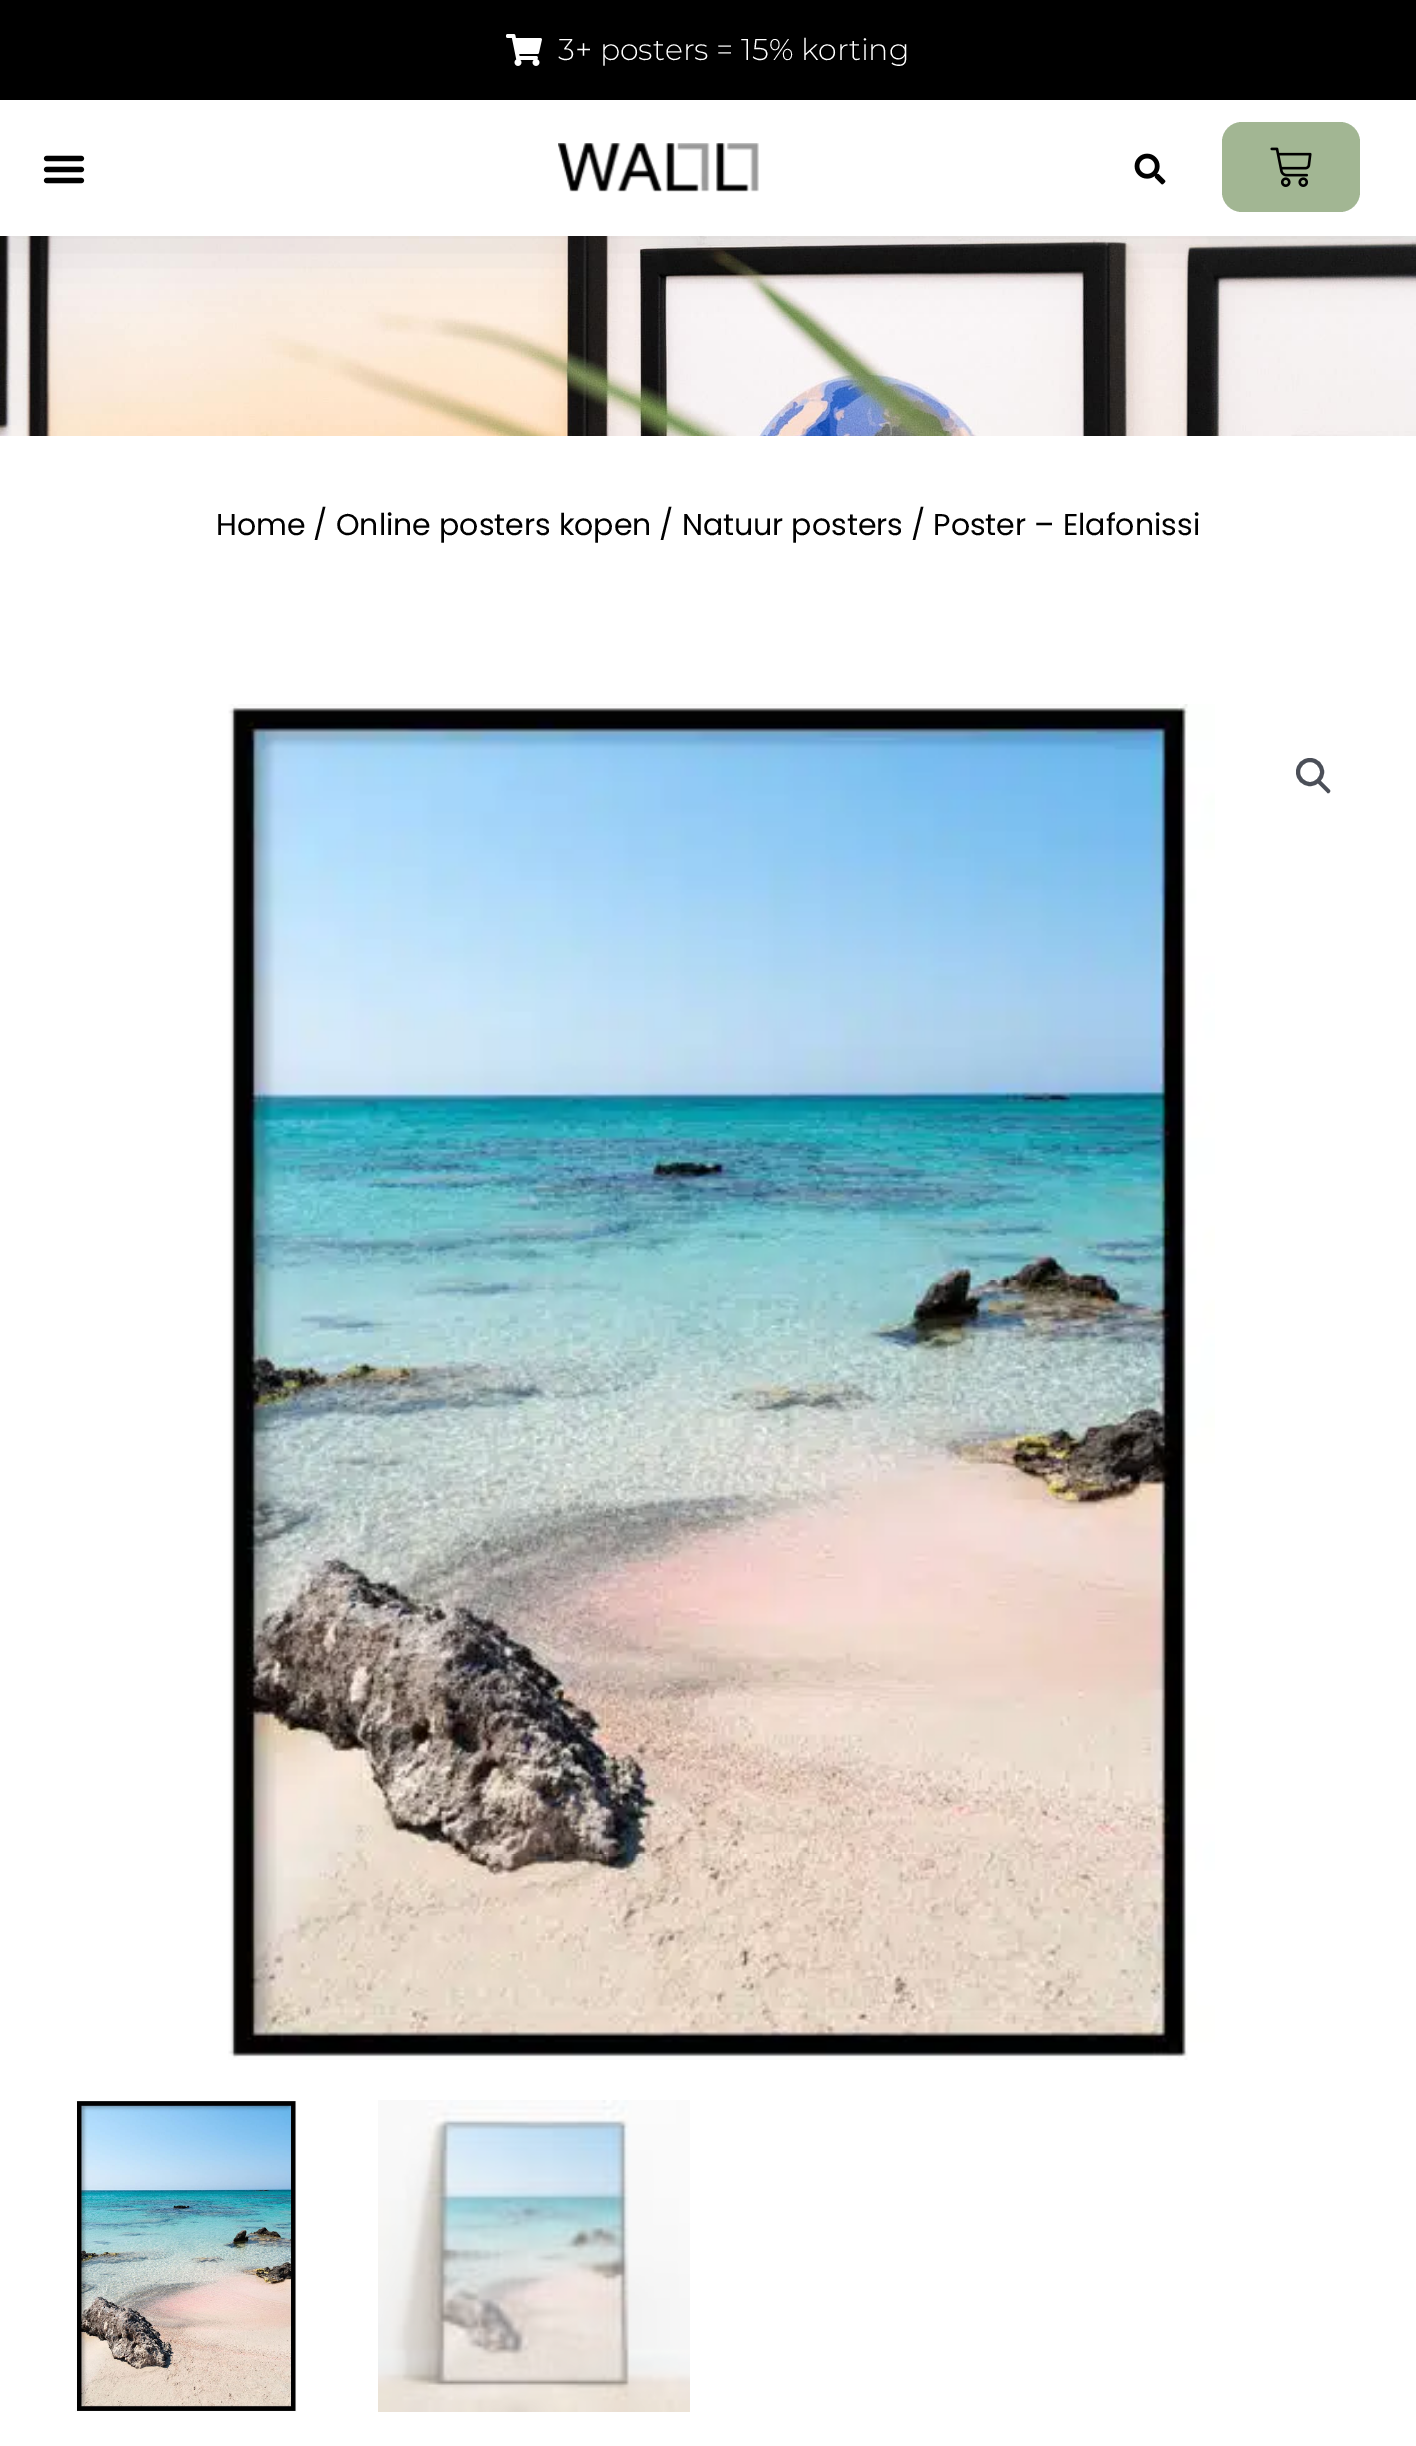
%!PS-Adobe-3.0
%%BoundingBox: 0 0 1416 2446
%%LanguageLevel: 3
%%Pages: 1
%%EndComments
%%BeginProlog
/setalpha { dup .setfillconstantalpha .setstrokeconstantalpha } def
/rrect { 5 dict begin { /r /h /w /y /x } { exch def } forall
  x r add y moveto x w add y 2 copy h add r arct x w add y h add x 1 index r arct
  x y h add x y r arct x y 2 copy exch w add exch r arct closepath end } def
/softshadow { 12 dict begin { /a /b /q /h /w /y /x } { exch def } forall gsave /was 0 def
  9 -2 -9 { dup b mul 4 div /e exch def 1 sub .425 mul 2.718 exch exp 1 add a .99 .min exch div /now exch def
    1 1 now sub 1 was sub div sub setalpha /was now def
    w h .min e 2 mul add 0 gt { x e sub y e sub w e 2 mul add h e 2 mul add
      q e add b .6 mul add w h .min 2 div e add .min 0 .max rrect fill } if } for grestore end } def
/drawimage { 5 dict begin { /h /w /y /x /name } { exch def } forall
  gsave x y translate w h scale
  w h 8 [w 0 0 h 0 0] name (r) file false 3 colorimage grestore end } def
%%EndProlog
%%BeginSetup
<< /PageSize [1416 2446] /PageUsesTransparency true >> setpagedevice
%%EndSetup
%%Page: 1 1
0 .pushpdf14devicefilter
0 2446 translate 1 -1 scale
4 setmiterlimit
1 setgray
0 0 1416 2446 rectfill
(images/6.raw) 0 236 1416 200 drawimage
0 setgray
0 10 1416 236 0 30 0.1 softshadow
0 0 1416 100 rectfill
(images/1.raw) 506 34 36 32 drawimage
1 setgray
0 100 1416 136 rectfill
(images/2.raw) 43 155 42 29 drawimage
(images/3.raw) 558 143 201 49 drawimage
(images/4.raw) 1134 153 32 32 drawimage
0.635 0.714 0.576 setrgbcolor
1222 122 138 90 20 rrect fill
(images/5.raw) 1270 147 42 40 drawimage
(images/7.raw) 228 704 987 1356 drawimage
0.294 0.31 0.345 setrgbcolor
4 setlinewidth
newpath 1310 772 12 0 360 arc closepath stroke
newpath 1318.5 781 moveto 1319 780.5 1320.5 780.5 1321 781 curveto 1329.5 789.5 lineto 1330.5 790.5 1330.5 791.5 1329.5 792.5 curveto 1329 793.5 1327.5 793.5 1327 792.5 curveto 1318.5 784 lineto 1317.5 783 1317.5 782 1318.5 781 curveto closepath fill
(images/8.raw) 75 2101 222 311 drawimage
(images/9.raw) 378 2100 312 312 drawimage
/Montserrat-Light [30 0 0 -30 0 0] selectfont
1 setgray
558 60 moveto (3+ posters = 15% korting) show
/Poppins-Regular [30 0 0 -30 0 0] selectfont
0 setgray
216 535 moveto (Home / Online posters kopen / Natuur posters / Poster – Elafonissi) show
.poppdf14devicefilter showpage
%%EOF
